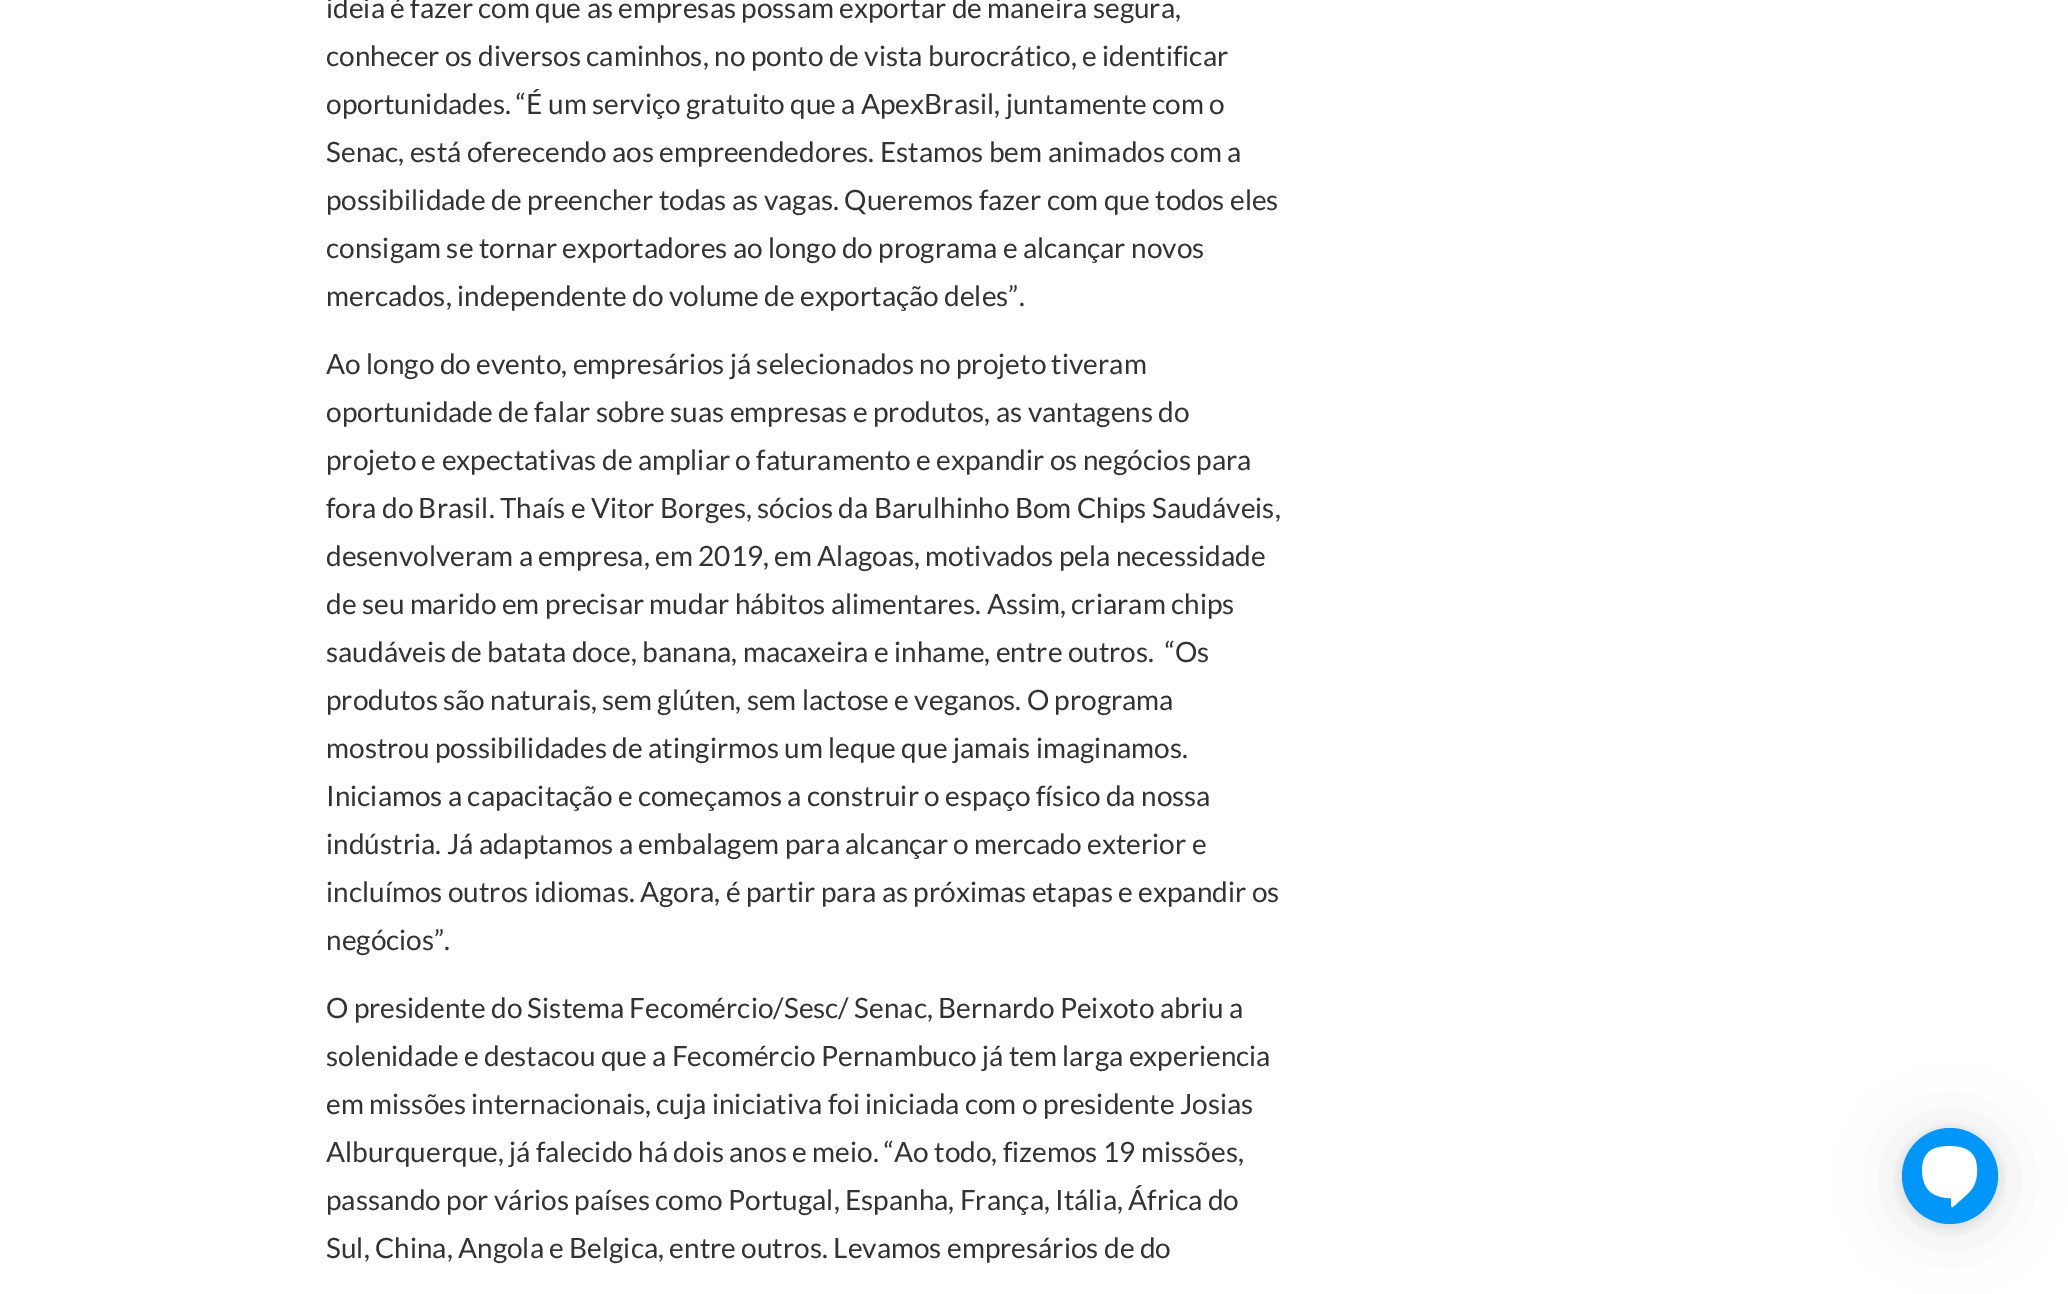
%!PS-Adobe-3.0
%%BoundingBox: 0 0 2068 1294
%%LanguageLevel: 3
%%Pages: 1
%%EndComments
%%BeginProlog
/setalpha { dup .setfillconstantalpha .setstrokeconstantalpha } def
/rrect { 5 dict begin { /r /h /w /y /x } { exch def } forall
  x r add y moveto x w add y 2 copy h add r arct x w add y h add x 1 index r arct
  x y h add x y r arct x y 2 copy exch w add exch r arct closepath end } def
/softshadow { 12 dict begin { /a /b /q /h /w /y /x } { exch def } forall gsave /was 0 def
  9 -2 -9 { dup b mul 4 div /e exch def 1 sub .425 mul 2.718 exch exp 1 add a .99 .min exch div /now exch def
    1 1 now sub 1 was sub div sub setalpha /was now def
    w h .min e 2 mul add 0 gt { x e sub y e sub w e 2 mul add h e 2 mul add
      q e add b .6 mul add w h .min 2 div e add .min 0 .max rrect fill } if } for grestore end } def
/drawimage { 5 dict begin { /h /w /y /x /name } { exch def } forall
  gsave x y translate w h scale
  w h 8 [w 0 0 h 0 0] name (r) file false 3 colorimage grestore end } def
%%EndProlog
%%BeginSetup
<< /PageSize [2068 1294] /PageUsesTransparency true >> setpagedevice
%%EndSetup
%%Page: 1 1
0 .pushpdf14devicefilter
0 1294 translate 1 -1 scale
4 setmiterlimit
1 setgray
0 0 2068 1294 rectfill
0 setgray
1902 1132 96 96 48 32 0.1 softshadow
1902 1130 96 96 48 6 0.1 softshadow
0 0.588 0.98 setrgbcolor
newpath 1950 1176 48 0 360 arc closepath fill
(images/1.raw) 1922 1146 56 62 drawimage
/Lato-Regular [28 0 0 -28 0 0] selectfont
0.2 setgray
326 18 moveto (ideia é fazer com que as empresas possam exportar de maneira segura,) show
326 66 moveto (conhecer os diversos caminhos, no ponto de vista burocrático, e identificar) show
326 114 moveto (oportunidades. “É um serviço gratuito que a ApexBrasil, juntamente com o) show
326 162 moveto (Senac, está oferecendo aos empreendedores. Estamos bem animados com a) show
326 210 moveto (possibilidade de preencher todas as vagas. Queremos fazer com que todos eles) show
326 258 moveto (consigam se tornar exportadores ao longo do programa e alcançar novos) show
326 306 moveto (mercados, independente do volume de exportação deles”.) show
326 374 moveto (Ao longo do evento, empresários já selecionados no projeto tiveram) show
326 422 moveto (oportunidade de falar sobre suas empresas e produtos, as vantagens do) show
326 470 moveto (projeto e expectativas de ampliar o faturamento e expandir os negócios para) show
326 518 moveto (fora do Brasil. Thaís e Vitor Borges, sócios da Barulhinho Bom Chips Saudáveis,) show
326 566 moveto (desenvolveram a empresa, em 2019, em Alagoas, motivados pela necessidade) show
326 614 moveto (de seu marido em precisar mudar hábitos alimentares. Assim, criaram chips) show
326 662 moveto (saudáveis de batata doce, banana, macaxeira e inhame, entre outros.  “Os) show
326 710 moveto (produtos são naturais, sem glúten, sem lactose e veganos. O programa) show
326 758 moveto (mostrou possibilidades de atingirmos um leque que jamais imaginamos.) show
326 806 moveto (Iniciamos a capacitação e começamos a construir o espaço físico da nossa) show
326 854 moveto (indústria. Já adaptamos a embalagem para alcançar o mercado exterior e) show
326 902 moveto (incluímos outros idiomas. Agora, é partir para as próximas etapas e expandir os) show
326 950 moveto (negócios”.) show
326 1018 moveto (O presidente do Sistema Fecomércio/Sesc/ Senac, Bernardo Peixoto abriu a) show
326 1066 moveto (solenidade e destacou que a Fecomércio Pernambuco já tem larga experiencia) show
326 1114 moveto (em missões internacionais, cuja iniciativa foi iniciada com o presidente Josias) show
326 1162 moveto (Alburquerque, já falecido há dois anos e meio. “Ao todo, fizemos 19 missões,) show
326 1210 moveto (passando por vários países como Portugal, Espanha, França, Itália, África do) show
326 1258 moveto (Sul, China, Angola e Belgica, entre outros. Levamos empresários de do) show
.poppdf14devicefilter showpage
%%EOF
